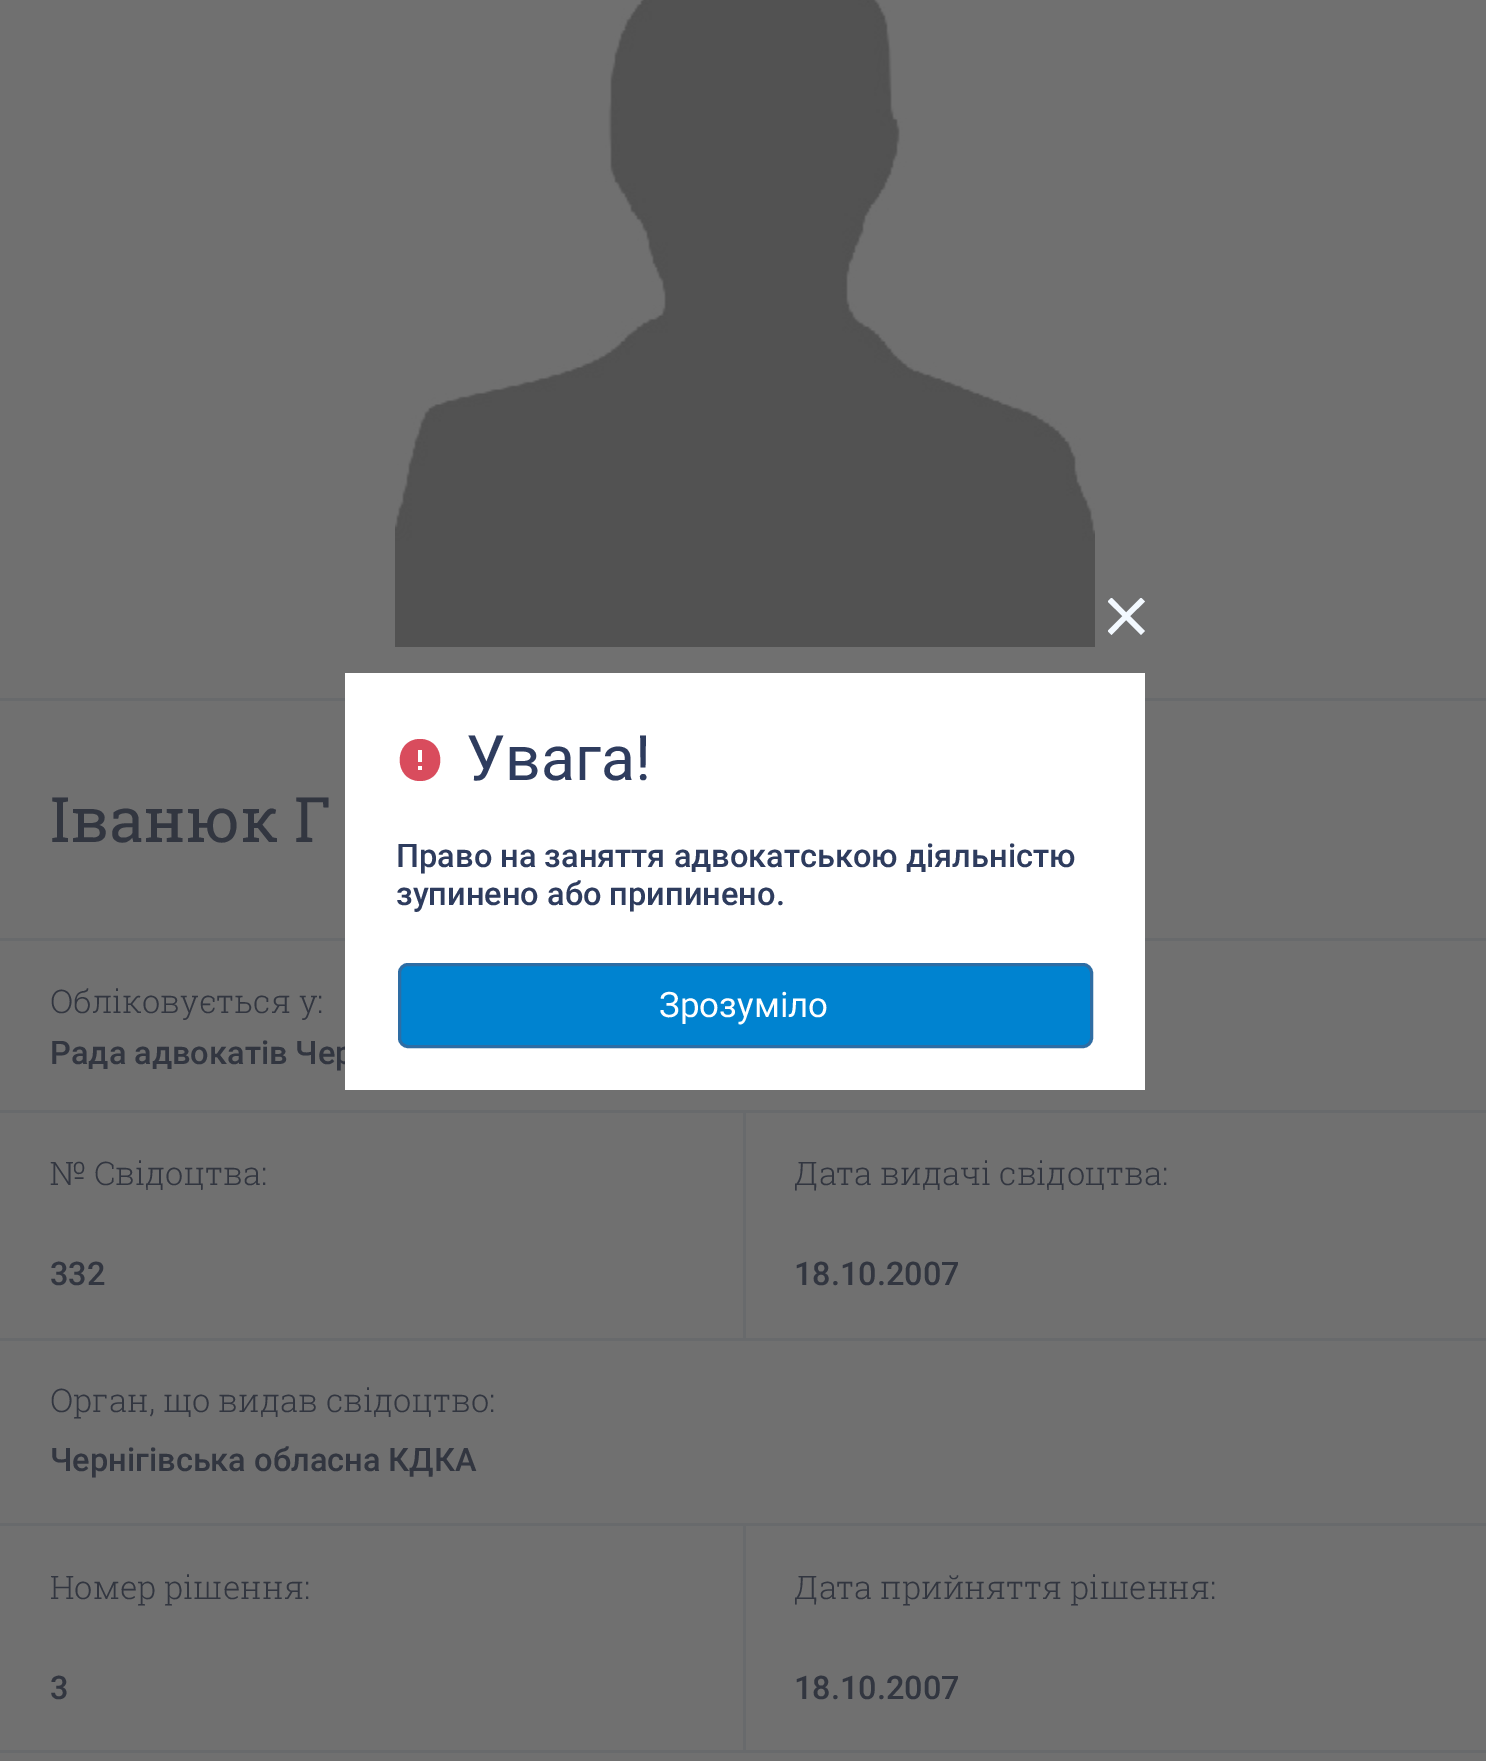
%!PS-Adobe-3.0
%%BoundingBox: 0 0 1486 1761
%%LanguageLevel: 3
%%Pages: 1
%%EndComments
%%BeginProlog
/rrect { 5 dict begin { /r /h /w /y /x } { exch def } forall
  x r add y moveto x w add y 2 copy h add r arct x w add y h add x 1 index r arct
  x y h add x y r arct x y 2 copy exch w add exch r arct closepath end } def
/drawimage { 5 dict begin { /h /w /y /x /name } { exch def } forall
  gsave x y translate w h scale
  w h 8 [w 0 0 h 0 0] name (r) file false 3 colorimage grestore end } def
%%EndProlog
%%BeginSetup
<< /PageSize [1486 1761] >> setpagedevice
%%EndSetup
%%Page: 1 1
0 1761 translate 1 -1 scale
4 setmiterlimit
0.439 setgray
0 0 1486 1761 rectfill
gsave
1108 598 37 37 rectclip
0.953 0.976 1 setrgbcolor
newpath 1126 612.5 moveto 1111.5 597.5 lineto 1107.5 601.5 lineto 1122.5 616 lineto 1107.5 631 lineto 1111.5 635 lineto 1126 620 lineto 1141 635 lineto 1145 631 lineto 1130 616 lineto 1145 601.5 lineto 1141 597.5 lineto closepath eofill
grestore
(images/1.raw) 395 0 700 647 drawimage
0.408 0.416 0.424 setrgbcolor
0 698 1486 3 rectfill
0 938 1486 3 rectfill
0 1110 745 3 rectfill
743 1110 3 230 rectfill
0 1338 1486 3 rectfill
745 1110 741 3 rectfill
0 1523 745 3 rectfill
743 1523 3 230 rectfill
0 1750 1486 3 rectfill
745 1523 741 3 rectfill
/RobotoSlab-Regular [62.5 0 0 -62.5 0 0] selectfont
0.196 0.212 0.251 setrgbcolor
50 842 moveto (Іванюк Г) show
/RobotoSlab-Light [32.5 0 0 -32.5 0 0] selectfont
50 1013 moveto (Обліковується у:) show
/Roboto-Medium [32.5 0 0 -32.5 0 0] selectfont
50 1064 moveto (Рада адвокатів Чер) show
1 setgray
345 673 800 417 rectfill
0.851 0.298 0.365 setrgbcolor
newpath 420 739 moveto 393 739 393 781 420 781 curveto 447 781 447 739 420 739 curveto closepath 422 770 moveto 418 770 lineto 418 766 lineto 422 766 lineto closepath 422 762 moveto 418 762 lineto 418 750 lineto 422 750 lineto closepath fill
0 0.514 0.816 setrgbcolor
399.5 964.5 692 82 8.5 rrect gsave fill grestore
0.18 0.427 0.643 setrgbcolor
3 setlinewidth
stroke
/Roboto-Regular [35 0 0 -35 0 0] selectfont
1 setgray
659 1017 moveto (Зрозуміло) show
/Roboto-Medium [32.5 0 0 -32.5 0 0] selectfont
0.18 0.235 0.369 setrgbcolor
396 905 moveto (зупинено або припинено.) show
396 867 moveto (Право на заняття адвокатською діяльністю) show
/Roboto-Regular [62.5 0 0 -62.5 0 0] selectfont
466 780 moveto (Увага!) show
/RobotoSlab-Light [32.5 0 0 -32.5 0 0] selectfont
0.196 0.212 0.251 setrgbcolor
50 1185 moveto (№ Свідоцтва:) show
/Roboto-Medium [32.5 0 0 -32.5 0 0] selectfont
50 1285 moveto (332) show
/RobotoSlab-Light [32.5 0 0 -32.5 0 0] selectfont
794 1185 moveto (Дата видачі свідоцтва:) show
/Roboto-Medium [32.5 0 0 -32.5 0 0] selectfont
794 1285 moveto (18.10.2007) show
/RobotoSlab-Light [32.5 0 0 -32.5 0 0] selectfont
50 1412 moveto (Орган, що видав свідоцтво:) show
/Roboto-Medium [32.5 0 0 -32.5 0 0] selectfont
50 1471 moveto (Чернігівська обласна КДКА) show
/RobotoSlab-Light [32.5 0 0 -32.5 0 0] selectfont
50 1599 moveto (Номер рішення:) show
/Roboto-Medium [32.5 0 0 -32.5 0 0] selectfont
50 1699 moveto (3) show
/RobotoSlab-Light [32.5 0 0 -32.5 0 0] selectfont
794 1599 moveto (Дата прийняття рішення:) show
/Roboto-Medium [32.5 0 0 -32.5 0 0] selectfont
794 1699 moveto (18.10.2007) show
showpage
%%EOF
